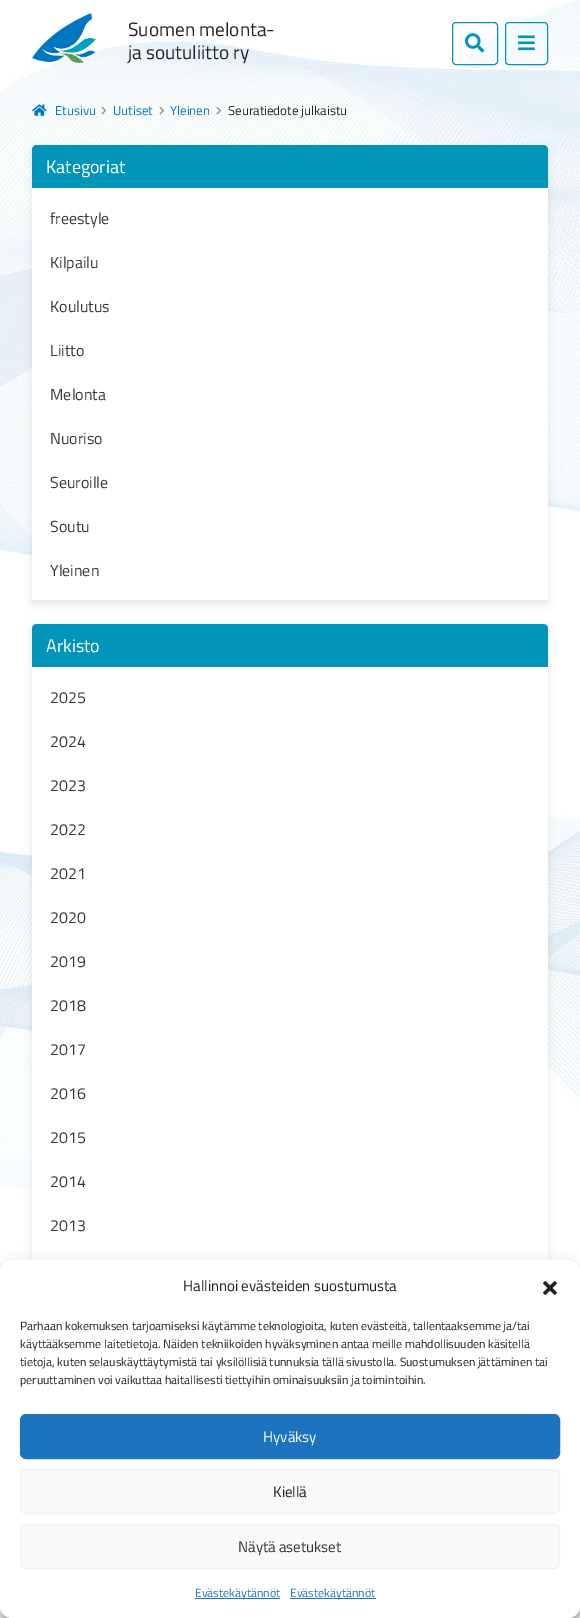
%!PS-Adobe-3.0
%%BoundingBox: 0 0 580 1618
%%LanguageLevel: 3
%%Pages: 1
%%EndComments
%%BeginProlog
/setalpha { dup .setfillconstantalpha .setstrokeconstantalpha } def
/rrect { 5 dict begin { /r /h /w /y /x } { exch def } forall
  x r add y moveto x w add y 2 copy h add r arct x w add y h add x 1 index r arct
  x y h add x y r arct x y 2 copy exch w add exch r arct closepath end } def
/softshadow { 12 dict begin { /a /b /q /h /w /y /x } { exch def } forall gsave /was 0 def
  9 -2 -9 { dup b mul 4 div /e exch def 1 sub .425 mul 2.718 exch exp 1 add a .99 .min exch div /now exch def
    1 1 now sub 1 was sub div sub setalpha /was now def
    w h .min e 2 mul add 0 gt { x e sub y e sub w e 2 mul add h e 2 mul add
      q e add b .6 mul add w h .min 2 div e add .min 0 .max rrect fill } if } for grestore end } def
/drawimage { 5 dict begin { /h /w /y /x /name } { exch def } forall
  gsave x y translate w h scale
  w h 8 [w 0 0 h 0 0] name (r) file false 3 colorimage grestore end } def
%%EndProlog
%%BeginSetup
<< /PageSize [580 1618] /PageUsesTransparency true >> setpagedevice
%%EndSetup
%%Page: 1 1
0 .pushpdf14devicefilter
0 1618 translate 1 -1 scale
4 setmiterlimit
1 setgray
0 0 580 1618 rectfill
(images/1.raw) 0 0 580 1618 drawimage
(images/2.raw) 32 13 64 50 drawimage
0 0.584 0.725 setrgbcolor
452.5 22.5 45 42 3.5 rrect stroke
(images/3.raw) 465 33 20 20 drawimage
505.5 22.5 42 42 3.5 rrect stroke
(images/4.raw) 518 35 17 16 drawimage
(images/5.raw) 32 104 15 12 drawimage
(images/6.raw) 101 106 6 9 drawimage
(images/7.raw) 159 106 6 9 drawimage
(images/8.raw) 216 106 6 9 drawimage
0 setgray
32 149 516 455 0 4 0.1 softshadow
0 0.584 0.725 setrgbcolor
newpath 37 145 moveto 543 145 lineto 546 145 548 147 548 150 curveto 548 188 lineto 32 188 lineto 32 150 lineto 32 147 34 145 37 145 curveto closepath fill
1 setgray
32 188 516 412 rectfill
0 setgray
32 628 516 675 0 4 0.1 softshadow
0 0.584 0.725 setrgbcolor
newpath 37 624 moveto 543 624 lineto 546 624 548 626 548 629 curveto 548 667 lineto 32 667 lineto 32 629 lineto 32 626 34 624 37 624 curveto closepath fill
1 setgray
32 667 516 593 rectfill
0 setgray
0 1266 580 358 12 3 0.23 softshadow
0 1270 580 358 12 10 0.19 softshadow
1 setgray
0 1260 580 358 12 rrect fill
(images/9.raw) 543 1281 14 14 drawimage
0.118 0.451 0.745 setrgbcolor
20.5 1414.5 539 44 5.5 rrect gsave fill grestore
stroke
0.976 setgray
20.5 1469.5 539 44 5.5 rrect gsave fill grestore
0.949 setgray
stroke
0.976 setgray
20.5 1524.5 539 44 5.5 rrect gsave fill grestore
0.949 setgray
stroke
0.118 0.451 0.745 setrgbcolor
195 1598 85 1 rectfill
290 1598 86 1 rectfill
/TitilliumWeb-Regular [19.25 0 0 -19.25 0 0] selectfont
0.129 0.145 0.161 setrgbcolor
128 36 moveto (Suomen melonta-) show
128 59 moveto (ja soutuliitto ry) show
/TitilliumWeb-Regular [13 0 0 -13 0 0] selectfont
0 0.471 0.733 setrgbcolor
55 115 moveto (Etusivu) show
113 115 moveto (Uutiset) show
170 115 moveto (Yleinen) show
0.129 0.145 0.161 setrgbcolor
228 115 moveto (Seuratiedote julkaistu) show
/TitilliumWeb-Regular [18 0 0 -18 0 0] selectfont
1 setgray
46 173 moveto (Kategoriat) show
/TitilliumWeb-Regular [16 0 0 -16 0 0] selectfont
0.204 0.227 0.251 setrgbcolor
50 224 moveto (freestyle) show
50 268 moveto (Kilpailu) show
50 312 moveto (Koulutus) show
50 356 moveto (Liitto) show
50 400 moveto (Melonta) show
50 444 moveto (Nuoriso) show
50 488 moveto (Seuroille) show
50 532 moveto (Soutu) show
50 576 moveto (Yleinen) show
/TitilliumWeb-Regular [18 0 0 -18 0 0] selectfont
1 setgray
46 652 moveto (Arkisto) show
/TitilliumWeb-Regular [16 0 0 -16 0 0] selectfont
0.204 0.227 0.251 setrgbcolor
50 703 moveto (2025) show
50 747 moveto (2024) show
50 791 moveto (2023) show
50 835 moveto (2022) show
50 879 moveto (2021) show
50 923 moveto (2020) show
50 967 moveto (2019) show
50 1011 moveto (2018) show
50 1055 moveto (2017) show
50 1099 moveto (2016) show
50 1143 moveto (2015) show
50 1187 moveto (2014) show
50 1231 moveto (2013) show
/TitilliumWeb-Regular [15 0 0 -15 0 0] selectfont
0.133 setgray
183 1291 moveto (Hallinnoi evästeiden suostumusta) show
/TitilliumWeb-Regular [12 0 0 -12 0 0] selectfont
20 1330 moveto (Parhaan kokemuksen tarjoamiseksi käytämme teknologioita, kuten evästeitä, tallentaaksemme ja/tai) show
20 1348 moveto (käyttääksemme laitetietoja. Näiden tekniikoiden hyväksyminen antaa meille mahdollisuuden käsitellä) show
20 1366 moveto (tietoja, kuten selauskäyttäytymistä tai yksilöllisiä tunnuksia tällä sivustolla. Suostumuksen jättäminen tai) show
20 1384 moveto (peruuttaminen voi vaikuttaa haitallisesti tiettyihin ominaisuuksiin ja toimintoihin.) show
/TitilliumWeb-Regular [15 0 0 -15 0 0] selectfont
1 setgray
263 1442 moveto (Hyväksy) show
0.133 setgray
273 1497 moveto (Kiellä) show
0.2 setgray
238 1552 moveto (Näytä asetukset) show
/TitilliumWeb-Regular [12 0 0 -12 0 0] selectfont
0.118 0.451 0.745 setrgbcolor
195 1597 moveto (Evästekäytännöt) show
290 1597 moveto (Evästekäytännöt) show
.poppdf14devicefilter showpage
%%EOF
